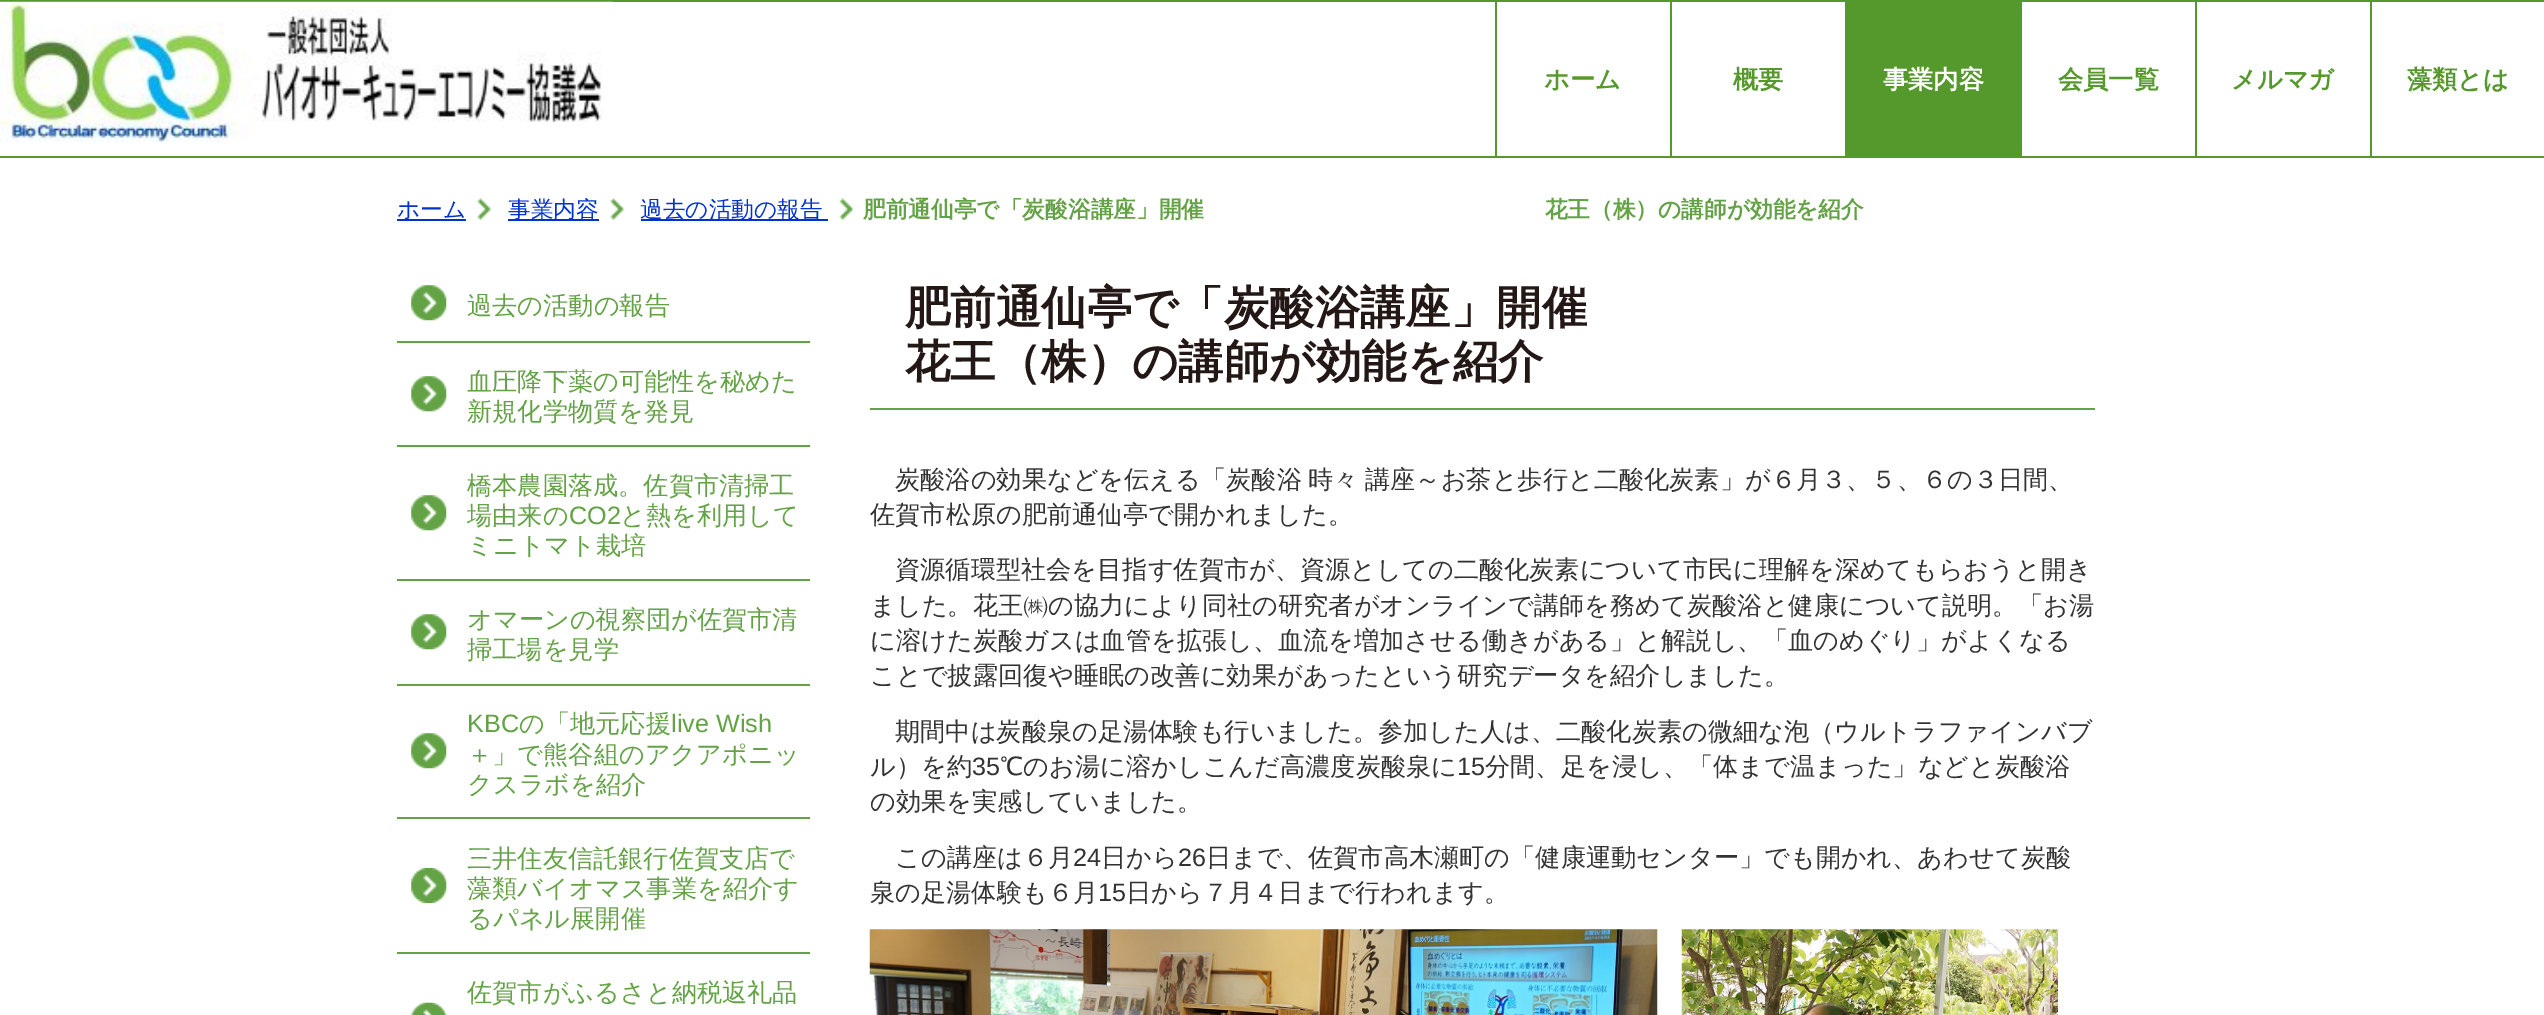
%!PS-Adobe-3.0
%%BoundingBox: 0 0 2544 1015
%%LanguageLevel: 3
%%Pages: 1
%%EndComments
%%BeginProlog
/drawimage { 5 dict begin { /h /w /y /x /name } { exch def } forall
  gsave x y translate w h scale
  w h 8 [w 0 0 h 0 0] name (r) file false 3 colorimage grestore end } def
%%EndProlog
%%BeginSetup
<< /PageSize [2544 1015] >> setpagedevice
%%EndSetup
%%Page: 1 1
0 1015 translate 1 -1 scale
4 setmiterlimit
1 setgray
0 0 2544 1015 rectfill
0.333 0.6 0.173 setrgbcolor
0 0 2544 2 rectfill
0 156 2544 2 rectfill
(images/1.raw) 0 1 613 141 drawimage
1495 2 2 156 rectfill
1670 2 2 156 rectfill
1845 2 1 156 rectfill
1846 2 174 154 rectfill
2020 2 2 156 rectfill
2195 2 2 156 rectfill
2370 2 2 156 rectfill
0 0.2 0.8 setrgbcolor
397 219 69 2 rectfill
(images/2.raw) 477 198 15 22 drawimage
508 219 91 2 rectfill
(images/3.raw) 610 198 15 22 drawimage
641 219 187 2 rectfill
(images/4.raw) 839 198 15 22 drawimage
(images/5.raw) 411 285 36 36 drawimage
0.388 0.639 0.275 setrgbcolor
397 341 413 2 rectfill
(images/5.raw) 411 376 36 36 drawimage
397 445 413 2 rectfill
(images/5.raw) 411 495 36 36 drawimage
397 579 413 2 rectfill
(images/5.raw) 411 614 36 36 drawimage
397 684 413 2 rectfill
(images/5.raw) 411 733 36 36 drawimage
397 817 413 2 rectfill
(images/6.raw) 411 868 36 35 drawimage
397 952 413 2 rectfill
(images/7.raw) 411 1002 36 13 drawimage
870 408 1225 2 rectfill
(images/8.raw) 869 929 789 86 drawimage
(images/9.raw) 1681 929 377 86 drawimage
/WenQuanYiZenHei-Bold [25.2 0 0 -25.2 0 0] selectfont
0.333 0.6 0.173 setrgbcolor
1544 88 moveto (ホーム) show
1733 88 moveto (概要) show
1 setgray
1883 88 moveto (事業内容) show
0.333 0.6 0.173 setrgbcolor
2058 88 moveto (会員一覧) show
2231 88 moveto (メルマガ) show
2407 88 moveto (藻類とは) show
/WenQuanYiZenHei-Medium [22.7 0 0 -22.7 0 0] selectfont
0 0.2 0.8 setrgbcolor
397 217 moveto (ホーム) show
508 217 moveto (事業内容) show
640 217 moveto (過去の活動の報告) show
/WenQuanYiZenHei-Bold [22.7 0 0 -22.7 0 0] selectfont
0.388 0.639 0.275 setrgbcolor
863 217 moveto (肥前通仙亭で「炭酸浴講座」開催　　　　　　　　　　　　　　　花王（株）の講師が効能を紹介) show
/WenQuanYiZenHei-Medium [25.2 0 0 -25.2 0 0] selectfont
467 314 moveto (過去の活動の報告) show
467 390 moveto (血圧降下薬の可能性を秘めた) show
467 420 moveto (新規化学物質を発見) show
467 494 moveto (橋本農園落成。佐賀市清掃工) show
467 524 moveto (場由来の) show
/LiberationSans-Regular [25.2 0 0 -25.2 0 0] selectfont
569 524 moveto (CO2) show
/WenQuanYiZenHei-Medium [25.2 0 0 -25.2 0 0] selectfont
620 524 moveto (と熱を利用して) show
467 554 moveto (ミニトマト栽培) show
467 628 moveto (オマーンの視察団が佐賀市清) show
467 658 moveto (掃工場を見学) show
/LiberationSans-Regular [25.2 0 0 -25.2 0 0] selectfont
467 732 moveto (KBC) show
/WenQuanYiZenHei-Medium [25.2 0 0 -25.2 0 0] selectfont
519 732 moveto (の「地元応援) show
/LiberationSans-Regular [25.2 0 0 -25.2 0 0] selectfont
671 732 moveto (live Wish) show
/WenQuanYiZenHei-Medium [25.2 0 0 -25.2 0 0] selectfont
467 763 moveto (＋」で熊谷組のアクアポニッ) show
467 793 moveto (クスラボを紹介) show
467 867 moveto (三井住友信託銀行佐賀支店で) show
467 897 moveto (藻類バイオマス事業を紹介す) show
467 927 moveto (るパネル展開催) show
467 1001 moveto (佐賀市がふるさと納税返礼品) show
/WenQuanYiZenHei-Bold [45.4 0 0 -45.4 0 0] selectfont
0.137 0.094 0.082 setrgbcolor
905 323 moveto (肥前通仙亭で「炭酸浴講座」開催) show
905 377 moveto (花王（株）の講師が効能を紹介) show
/WenQuanYiZenHei-Medium [25.2 0 0 -25.2 0 0] selectfont
0.2 setgray
895 488 moveto (炭酸浴の効果などを伝える「炭酸浴) show
1308 488 moveto (時々) show
1365 488 moveto (講座～お茶と歩行と二酸化炭素」が６月３、５、６の３日間、) show
870 523 moveto (佐賀市松原の肥前通仙亭で開かれました。) show
895 578 moveto (資源循環型社会を目指す佐賀市が、資源としての二酸化炭素について市民に理解を深めてもらおうと開き) show
870 614 moveto (ました。花王㈱の協力により同社の研究者がオンラインで講師を務めて炭酸浴と健康について説明。「お湯) show
870 649 moveto (に溶けた炭酸ガスは血管を拡張し、血流を増加させる働きがある」と解説し、「血のめぐり」がよくなる) show
870 684 moveto (ことで披露回復や睡眠の改善に効果があったという研究データを紹介しました。) show
895 740 moveto (期間中は炭酸泉の足湯体験も行いました。参加した人は、二酸化炭素の微細な泡（ウルトラファインバブ) show
870 775 moveto (ル）を約) show
/LiberationSans-Regular [25.2 0 0 -25.2 0 0] selectfont
972 775 moveto (35) show
/WenQuanYiZenHei-Medium [25.2 0 0 -25.2 0 0] selectfont
1000 775 moveto (℃のお湯に溶かしこんだ高濃度炭酸泉に) show
/LiberationSans-Regular [25.2 0 0 -25.2 0 0] selectfont
1457 775 moveto (15) show
/WenQuanYiZenHei-Medium [25.2 0 0 -25.2 0 0] selectfont
1485 775 moveto (分間、足を浸し、「体まで温まった」などと炭酸浴) show
870 810 moveto (の効果を実感していました。) show
895 866 moveto (この講座は６月) show
/LiberationSans-Regular [25.2 0 0 -25.2 0 0] selectfont
1073 866 moveto (24) show
/WenQuanYiZenHei-Medium [25.2 0 0 -25.2 0 0] selectfont
1101 866 moveto (日から) show
/LiberationSans-Regular [25.2 0 0 -25.2 0 0] selectfont
1178 866 moveto (26) show
/WenQuanYiZenHei-Medium [25.2 0 0 -25.2 0 0] selectfont
1206 866 moveto (日まで、佐賀市高木瀬町の「健康運動センター」でも開かれ、あわせて炭酸) show
870 901 moveto (泉の足湯体験も６月) show
/LiberationSans-Regular [25.2 0 0 -25.2 0 0] selectfont
1098 901 moveto (15) show
/WenQuanYiZenHei-Medium [25.2 0 0 -25.2 0 0] selectfont
1126 901 moveto (日から７月４日まで行われます。) show
showpage
%%EOF
